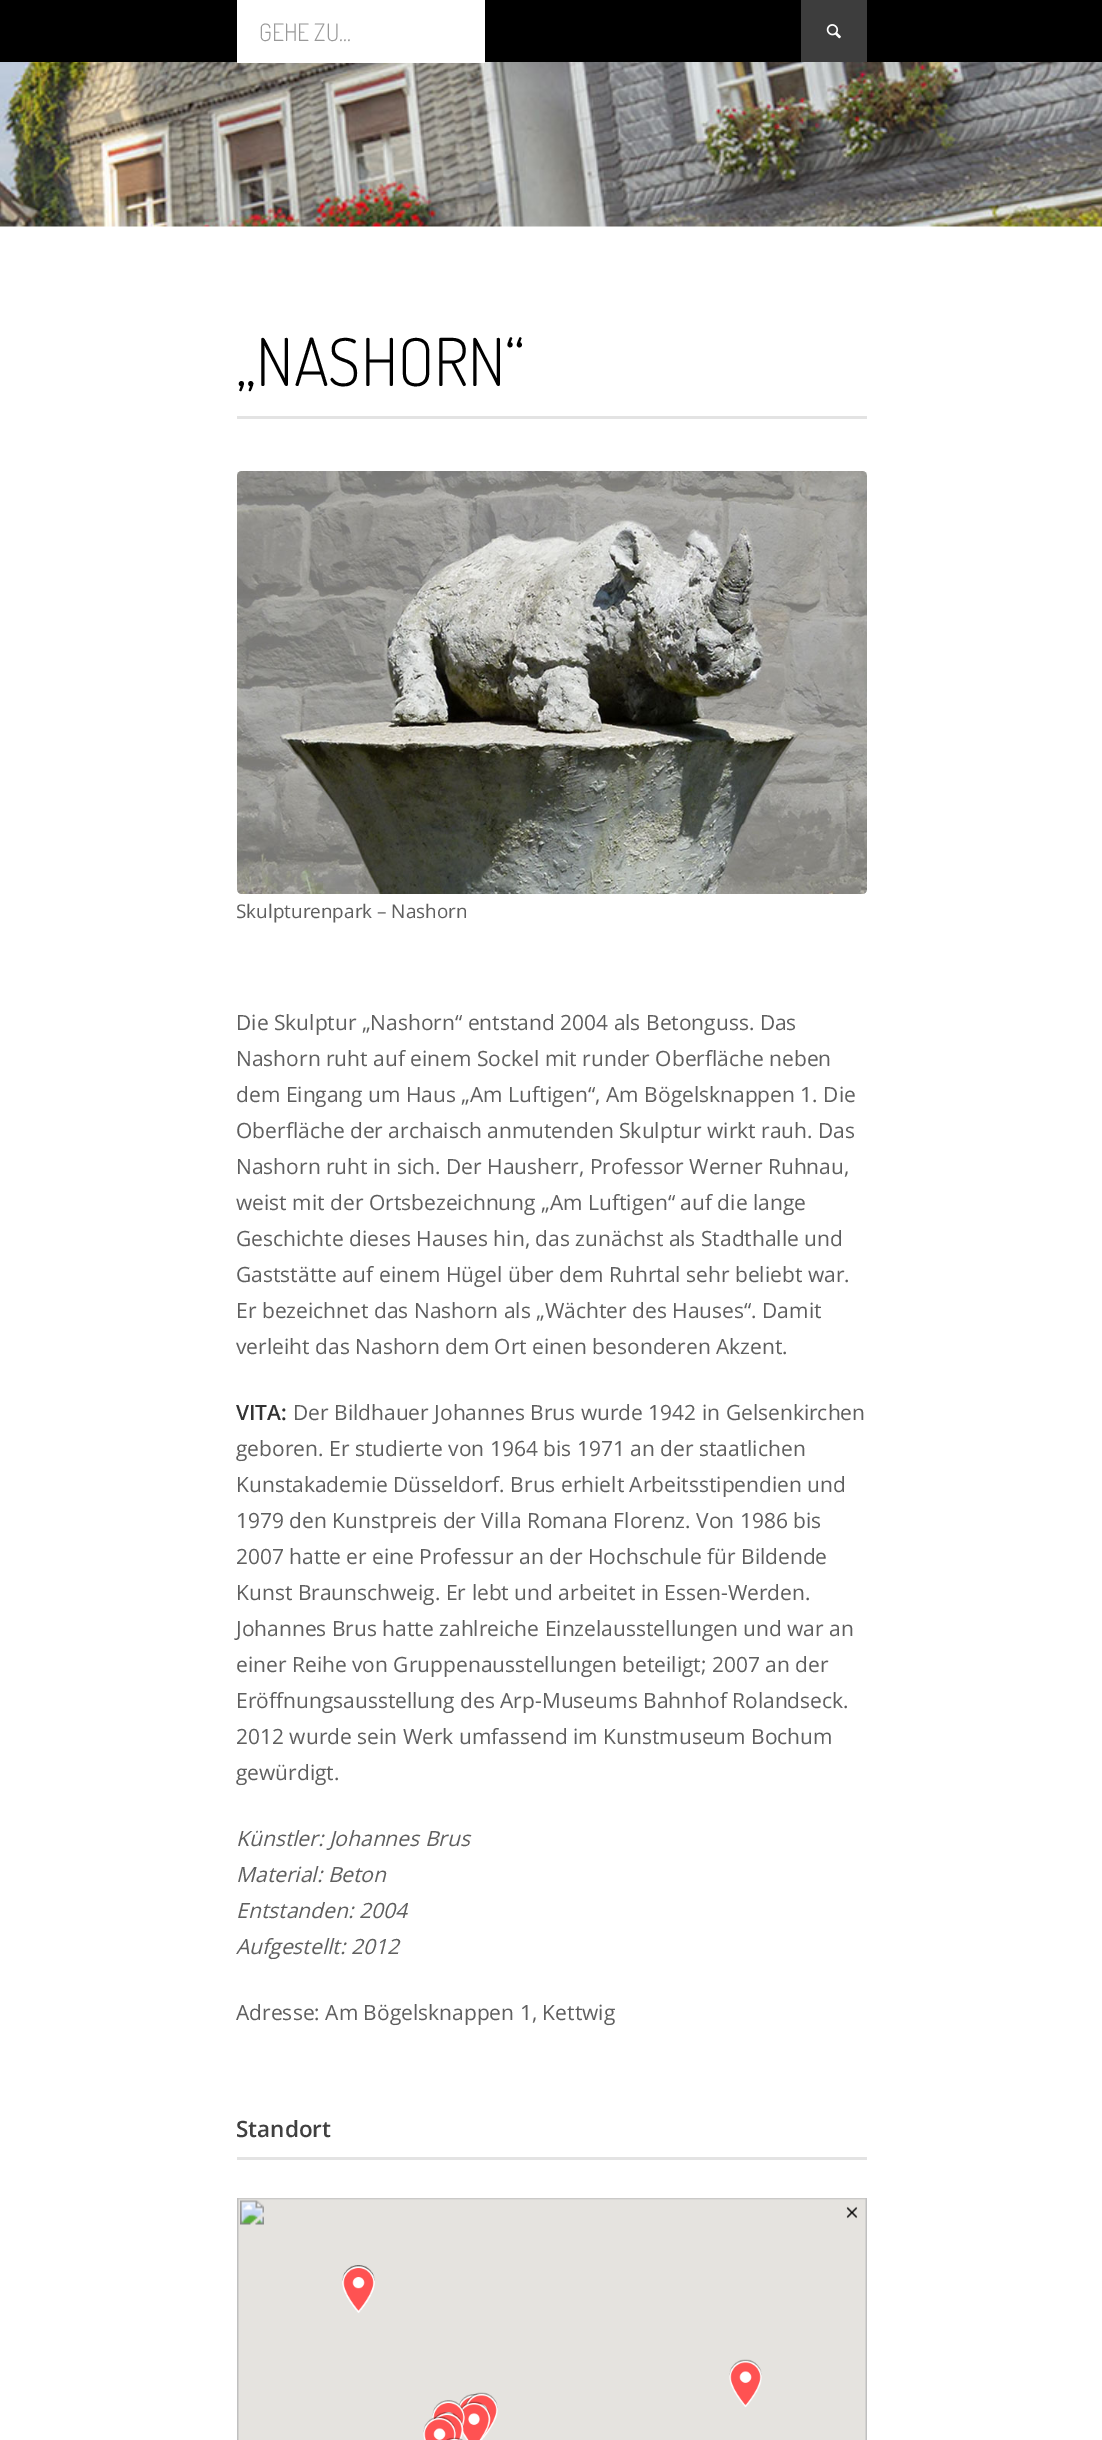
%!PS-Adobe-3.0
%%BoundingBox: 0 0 1102 2440
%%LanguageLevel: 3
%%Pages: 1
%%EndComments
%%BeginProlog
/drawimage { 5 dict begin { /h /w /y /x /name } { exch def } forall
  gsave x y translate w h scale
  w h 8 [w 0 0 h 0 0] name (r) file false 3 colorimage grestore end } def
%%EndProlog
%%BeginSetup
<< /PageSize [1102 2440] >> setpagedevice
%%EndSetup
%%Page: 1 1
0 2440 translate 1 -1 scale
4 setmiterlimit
1 setgray
0 0 1102 2440 rectfill
0 setgray
0 0 1102 62 rectfill
(images/2.raw) 0 62 1102 165 drawimage
1 setgray
237 0 248 63 rectfill
0.239 setgray
801 0 66 62 rectfill
(images/1.raw) 826 24 15 15 drawimage
0.89 setgray
237 416 630 3 rectfill
(images/3.raw) 237 471 630 423 drawimage
237 2157 630 3 rectfill
(images/4.raw) 237 2198 630 242 drawimage
/Dosis-Light [24 0 0 -24 0 0] selectfont
0.6 setgray
259 41 moveto (GEHE ZU...) show
/Dosis-Light [66 0 0 -66 0 0] selectfont
0 setgray
236 386 moveto („NASHORN“) show
/OpenSans-Regular [18.9 0 0 -18.9 0 0] selectfont
0.373 setgray
236 918 moveto (Skulpturenpark – Nashorn) show
/OpenSans-Regular [21 0 0 -21 0 0] selectfont
236 1030 moveto (Die Skulptur „Nashorn“ entstand 2004 als Betonguss. Das) show
236 1066 moveto (Nashorn ruht auf einem Sockel mit runder Oberfläche neben) show
236 1102 moveto (dem Eingang um Haus „Am Luftigen“, Am Bögelsknappen 1. Die) show
236 1138 moveto (Oberfläche der archaisch anmutenden Skulptur wirkt rauh. Das) show
236 1174 moveto (Nashorn ruht in sich. Der Hausherr, Professor Werner Ruhnau,) show
236 1210 moveto (weist mit der Ortsbezeichnung „Am Luftigen“ auf die lange) show
236 1246 moveto (Geschichte dieses Hauses hin, das zunächst als Stadthalle und) show
236 1282 moveto (Gaststätte auf einem Hügel über dem Ruhrtal sehr beliebt war.) show
236 1318 moveto (Er bezeichnet das Nashorn als „Wächter des Hauses“. Damit) show
236 1354 moveto (verleiht das Nashorn dem Ort einen besonderen Akzent.) show
/OpenSans-SemiBold [21 0 0 -21 0 0] selectfont
0.2 setgray
236 1420 moveto (VITA:) show
/OpenSans-Regular [21 0 0 -21 0 0] selectfont
0.373 setgray
293 1420 moveto (Der Bildhauer Johannes Brus wurde 1942 in Gelsenkirchen) show
236 1456 moveto (geboren. Er studierte von 1964 bis 1971 an der staatlichen) show
236 1492 moveto (Kunstakademie Düsseldorf. Brus erhielt Arbeitsstipendien und) show
236 1528 moveto (1979 den Kunstpreis der Villa Romana Florenz. Von 1986 bis) show
236 1564 moveto (2007 hatte er eine Professur an der Hochschule für Bildende) show
236 1600 moveto (Kunst Braunschweig. Er lebt und arbeitet in Essen-Werden.) show
236 1636 moveto (Johannes Brus hatte zahlreiche Einzelausstellungen und war an) show
236 1672 moveto (einer Reihe von Gruppenausstellungen beteiligt; 2007 an der) show
236 1708 moveto (Eröffnungsausstellung des Arp-Museums Bahnhof Rolandseck.) show
236 1744 moveto (2012 wurde sein Werk umfassend im Kunstmuseum Bochum) show
236 1780 moveto (gewürdigt.) show
/OpenSans-Italic [21 0 0 -21 0 0] selectfont
236 1846 moveto (Künstler: Johannes Brus) show
236 1882 moveto (Material: Beton) show
236 1918 moveto (Entstanden: 2004) show
236 1954 moveto (Aufgestellt: 2012) show
/OpenSans-Regular [21 0 0 -21 0 0] selectfont
236 2020 moveto (Adresse: Am Bögelsknappen 1, Kettwig) show
/OpenSans-SemiBold [22.5 0 0 -22.5 0 0] selectfont
0.251 setgray
236 2137 moveto (Standort) show
showpage
%%EOF
